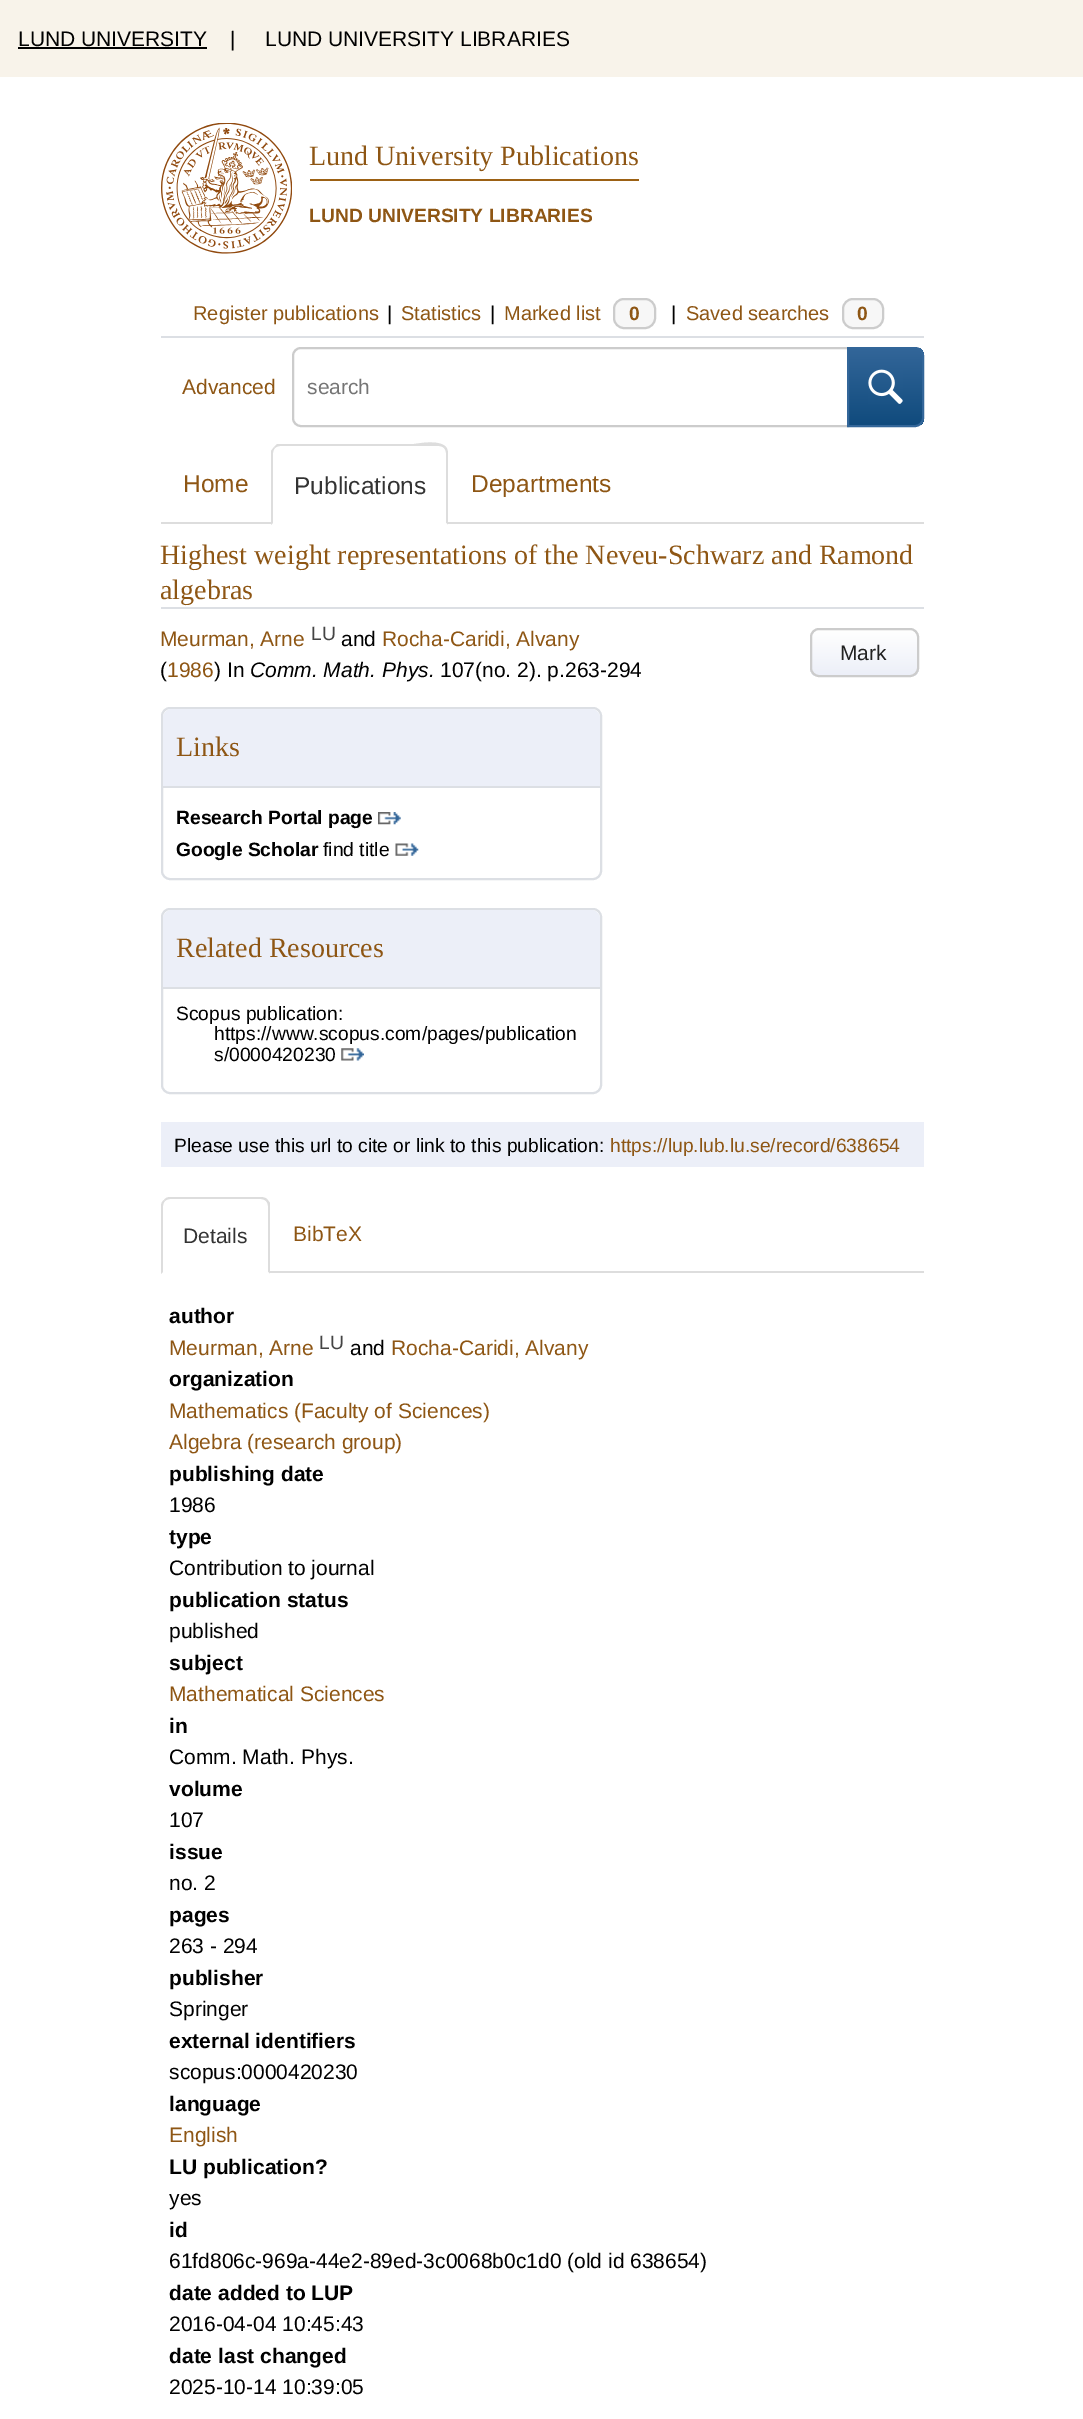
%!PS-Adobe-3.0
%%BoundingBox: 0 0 1083 2419
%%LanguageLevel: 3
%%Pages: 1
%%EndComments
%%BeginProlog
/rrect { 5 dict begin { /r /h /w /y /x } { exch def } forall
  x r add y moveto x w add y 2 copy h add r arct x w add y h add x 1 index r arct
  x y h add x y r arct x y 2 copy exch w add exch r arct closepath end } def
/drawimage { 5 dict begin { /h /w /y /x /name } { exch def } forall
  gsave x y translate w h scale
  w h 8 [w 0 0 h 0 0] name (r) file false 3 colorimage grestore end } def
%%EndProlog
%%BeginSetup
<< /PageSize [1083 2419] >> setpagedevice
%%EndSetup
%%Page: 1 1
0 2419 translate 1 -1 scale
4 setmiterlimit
1 setgray
0 0 1083 2419 rectfill
0.973 0.953 0.918 setrgbcolor
0 0 1083 77 rectfill
0 setgray
18 47 189 2 rectfill
(images/1.raw) 161 123 131 131 drawimage
0.612 0.38 0.078 setrgbcolor
310 179 329 2 rectfill
0.863 0.875 0.894 setrgbcolor
161 336 763 2 rectfill
0.969 setgray
614 299 41 29 10 rrect gsave fill grestore
0.8 setgray
2 setlinewidth
stroke
0.969 setgray
843 299 40 29 10 rrect gsave fill grestore
0.8 setgray
stroke
newpath 301 348 moveto 848 348 lineto 848 426 lineto 301 426 lineto 296.5 426 293 422.5 293 418 curveto 293 356 lineto 293 351.5 296.5 348 301 348 curveto closepath stroke
gsave
newpath 847 347 moveto 915 347 lineto 920 347 924 351 924 356 curveto 924 418 lineto 924 423 920 427 915 427 curveto 847 427 lineto closepath clip newpath
gsave newpath 849 348 moveto 924 348 lineto 924 425 lineto 849 425 lineto closepath clip newpath
<< /ShadingType 2 /ColorSpace /DeviceRGB /Coords [886 348 886 425] /Extend [true true] /Function << /FunctionType 2 /Domain [0 1] /C0 [0.2 0.4 0.6] /C1 [0.063 0.294 0.49] /N 1 >> >> shfill grestore
grestore
0.2 0.4 0.6 setrgbcolor
newpath 848 348 moveto 915 348 lineto 919.5 348 923 351.5 923 356 curveto 923 418 lineto 923 422.5 919.5 426 915 426 curveto 848 426 lineto closepath stroke
(images/2.raw) 868 369 35 35 drawimage
0.867 setgray
161 522 763 2 rectfill
1 setgray
newpath 280 445 moveto 439 445 lineto 444 445 448 449 448 454 curveto 448 525 lineto 271 525 lineto 271 454 lineto 271 449 275 445 280 445 curveto closepath fill
0.867 setgray
newpath 280 446 moveto 278 446 276 447 275 448 curveto 274 447 lineto 277 444 lineto 414 444 lineto 416 444 439 439 446 447 curveto 444 448 lineto 443 447 441 446 439 446 curveto closepath fill
newpath 448 525 moveto 448 453 lineto 448 451 447 448 446 447 curveto 444 448 lineto 445 449 446 451 446 453 curveto 446 523 lineto closepath fill
1 setgray
newpath 448 525 moveto 446 523 lineto 273 523 lineto 271 525 lineto closepath fill
0.867 setgray
newpath 271 525 moveto 271 451 lineto 274 447 lineto 275 448 lineto 274 449 273 451 273 453 curveto 273 523 lineto closepath fill
0.863 0.875 0.894 setrgbcolor
161 607 763 2 rectfill
gsave
810 628 109 49 9 rrect clip newpath
gsave newpath 810 630 moveto 919 630 lineto 919 676 lineto 810 676 lineto closepath clip newpath
<< /ShadingType 2 /ColorSpace /DeviceRGB /Coords [865 630 865 676] /Extend [true true] /Function << /FunctionType 2 /Domain [0 1] /C0 [1 1 1] /C1 [0.925 0.937 0.973] /N 1 >> >> shfill grestore
grestore
0.8 setgray
811 629 107 47 8 rrect stroke
0.863 0.875 0.894 setrgbcolor
162 708 439 171 8 rrect stroke
0.925 0.937 0.973 setrgbcolor
newpath 172 709 moveto 591 709 lineto 596 709 600 713 600 718 curveto 600 788 lineto 163 788 lineto 163 718 lineto 163 713 167 709 172 709 curveto closepath fill
0.863 0.875 0.894 setrgbcolor
163 786 437 2 rectfill
(images/3.raw) 378 812 23 13 drawimage
(images/4.raw) 395 843 24 13 drawimage
162 909 439 184 8 rrect stroke
0.925 0.937 0.973 setrgbcolor
newpath 172 910 moveto 591 910 lineto 596 910 600 914 600 919 curveto 600 989 lineto 163 989 lineto 163 919 lineto 163 914 167 910 172 910 curveto closepath fill
0.863 0.875 0.894 setrgbcolor
163 987 437 2 rectfill
(images/5.raw) 341 1048 23 13 drawimage
0.925 0.937 0.973 setrgbcolor
161 1122 763 45 rectfill
0.867 setgray
270 1271 654 2 rectfill
newpath 170 1197 moveto 168 1197 165 1198 164 1200 curveto 165 1201 lineto 166 1200 168 1199 170 1199 curveto 261 1199 lineto 263 1199 265 1200 266 1201 curveto 267 1199 lineto 266 1198 263 1197 261 1197 curveto closepath fill
newpath 270 1203 moveto 270 1274 lineto 268 1272 lineto 268 1206 lineto 268 1204 267 1202 266 1201 curveto 267 1199 lineto closepath fill
1 setgray
newpath 270 1274 moveto 268 1272 lineto 163 1272 lineto 161 1274 lineto closepath fill
0.867 setgray
newpath 161 1274 moveto 163 1272 lineto 163 1206 lineto 163 1204 164 1202 165 1201 curveto 164 1200 lineto 162 1201 161 1204 161 1206 curveto closepath fill
/LiberationSans-Regular [21 0 0 -21 0 0] selectfont
0 setgray
18 46 moveto (LUND UNIVERSITY) show
230 46 moveto (|) show
265 46 moveto (LUND UNIVERSITY LIBRARIES) show
/LiberationSerif-Regular [28 0 0 -28 0 0] selectfont
0.557 0.337 0.078 setrgbcolor
309 165 moveto (Lund University Publications) show
/LiberationSans-Bold [19.25 0 0 -19.25 0 0] selectfont
309 222 moveto (LUND UNIVERSITY LIBRARIES) show
/LiberationSans-Regular [20 0 0 -20 0 0] selectfont
193 320 moveto (Register publications) show
0 setgray
387 320 moveto (|) show
0.557 0.337 0.078 setrgbcolor
401 320 moveto (Statistics) show
0 setgray
490 320 moveto (|) show
0.557 0.337 0.078 setrgbcolor
504 320 moveto (Marked list) show
/LiberationSans-Bold [19.25 0 0 -19.25 0 0] selectfont
629 320 moveto (0) show
/LiberationSans-Regular [20 0 0 -20 0 0] selectfont
0 setgray
671 320 moveto (|) show
0.557 0.337 0.078 setrgbcolor
686 320 moveto (Saved searches) show
/LiberationSans-Bold [19.25 0 0 -19.25 0 0] selectfont
857 320 moveto (0) show
/LiberationSans-Regular [21 0 0 -21 0 0] selectfont
182 394 moveto (Advanced) show
0.459 setgray
307 394 moveto (search) show
/LiberationSans-Regular [24.5 0 0 -24.5 0 0] selectfont
0.557 0.337 0.078 setrgbcolor
183 492 moveto (Home) show
0.2 setgray
294 494 moveto (Publications) show
0.557 0.337 0.078 setrgbcolor
471 492 moveto (Departments) show
/LiberationSerif-Regular [28 0 0 -28 0 0] selectfont
160 564 moveto (Highest weight representations of the Neveu-Schwarz and Ramond) show
160 599 moveto (algebras) show
/LiberationSans-Regular [21 0 0 -21 0 0] selectfont
160 646 moveto (Meurman, Arne) show
/LiberationSans-Regular [19.25 0 0 -19.25 0 0] selectfont
0.267 setgray
311 640 moveto (LU) show
/LiberationSans-Regular [21 0 0 -21 0 0] selectfont
0 setgray
341 646 moveto (and) show
0.557 0.337 0.078 setrgbcolor
382 646 moveto (Rocha-Caridi, Alvany) show
0.133 setgray
840 660 moveto (Mark) show
0 setgray
160 677 moveto (\() show
0.557 0.337 0.078 setrgbcolor
167 677 moveto (1986) show
0 setgray
214 677 moveto (\) In) show
/LiberationSans-Italic [21 0 0 -21 0 0] selectfont
250 677 moveto (Comm. Math. Phys.) show
/LiberationSans-Regular [21 0 0 -21 0 0] selectfont
440 677 moveto (107\(no. 2\). p.263-294) show
/LiberationSerif-Regular [28 0 0 -28 0 0] selectfont
0.557 0.337 0.078 setrgbcolor
176 756 moveto (Links) show
/LiberationSans-Bold [19.25 0 0 -19.25 0 0] selectfont
0 setgray
176 824 moveto (Research Portal page) show
176 856 moveto (Google Scholar) show
/LiberationSans-Regular [19.25 0 0 -19.25 0 0] selectfont
323 856 moveto (find title) show
/LiberationSerif-Regular [28 0 0 -28 0 0] selectfont
0.557 0.337 0.078 setrgbcolor
176 957 moveto (Related Resources) show
/LiberationSans-Regular [19.25 0 0 -19.25 0 0] selectfont
0 setgray
176 1020 moveto (Scopus publication:) show
214 1040 moveto (https://www.scopus.com/pages/publication) show
214 1061 moveto (s/0000420230) show
174 1152 moveto (Please use this url to cite or link to this publication:) show
0.557 0.337 0.078 setrgbcolor
610 1152 moveto (https://lup.lub.lu.se/record/638654) show
/LiberationSans-Regular [21 0 0 -21 0 0] selectfont
0.2 setgray
183 1243 moveto (Details) show
0.557 0.337 0.078 setrgbcolor
293 1241 moveto (BibTeX) show
/LiberationSans-Bold [21 0 0 -21 0 0] selectfont
0 setgray
169 1323 moveto (author) show
/LiberationSans-Regular [21 0 0 -21 0 0] selectfont
0.557 0.337 0.078 setrgbcolor
169 1355 moveto (Meurman, Arne) show
/LiberationSans-Regular [19.25 0 0 -19.25 0 0] selectfont
0.267 setgray
319 1349 moveto (LU) show
/LiberationSans-Regular [21 0 0 -21 0 0] selectfont
0 setgray
350 1355 moveto (and) show
0.557 0.337 0.078 setrgbcolor
391 1355 moveto (Rocha-Caridi, Alvany) show
/LiberationSans-Bold [21 0 0 -21 0 0] selectfont
0 setgray
169 1386 moveto (organization) show
/LiberationSans-Regular [21 0 0 -21 0 0] selectfont
0.557 0.337 0.078 setrgbcolor
169 1418 moveto (Mathematics \(Faculty of Sciences\)) show
169 1449 moveto (Algebra \(research group\)) show
/LiberationSans-Bold [21 0 0 -21 0 0] selectfont
0 setgray
169 1481 moveto (publishing date) show
/LiberationSans-Regular [21 0 0 -21 0 0] selectfont
169 1512 moveto (1986) show
/LiberationSans-Bold [21 0 0 -21 0 0] selectfont
169 1544 moveto (type) show
/LiberationSans-Regular [21 0 0 -21 0 0] selectfont
169 1575 moveto (Contribution to journal) show
/LiberationSans-Bold [21 0 0 -21 0 0] selectfont
169 1607 moveto (publication status) show
/LiberationSans-Regular [21 0 0 -21 0 0] selectfont
169 1638 moveto (published) show
/LiberationSans-Bold [21 0 0 -21 0 0] selectfont
169 1670 moveto (subject) show
/LiberationSans-Regular [21 0 0 -21 0 0] selectfont
0.557 0.337 0.078 setrgbcolor
169 1701 moveto (Mathematical Sciences) show
/LiberationSans-Bold [21 0 0 -21 0 0] selectfont
0 setgray
169 1733 moveto (in) show
/LiberationSans-Regular [21 0 0 -21 0 0] selectfont
169 1764 moveto (Comm. Math. Phys.) show
/LiberationSans-Bold [21 0 0 -21 0 0] selectfont
169 1796 moveto (volume) show
/LiberationSans-Regular [21 0 0 -21 0 0] selectfont
169 1827 moveto (107) show
/LiberationSans-Bold [21 0 0 -21 0 0] selectfont
169 1859 moveto (issue) show
/LiberationSans-Regular [21 0 0 -21 0 0] selectfont
169 1890 moveto (no. 2) show
/LiberationSans-Bold [21 0 0 -21 0 0] selectfont
169 1922 moveto (pages) show
/LiberationSans-Regular [21 0 0 -21 0 0] selectfont
169 1953 moveto (263 - 294) show
/LiberationSans-Bold [21 0 0 -21 0 0] selectfont
169 1985 moveto (publisher) show
/LiberationSans-Regular [21 0 0 -21 0 0] selectfont
169 2016 moveto (Springer) show
/LiberationSans-Bold [21 0 0 -21 0 0] selectfont
169 2048 moveto (external identifiers) show
/LiberationSans-Regular [21 0 0 -21 0 0] selectfont
169 2079 moveto (scopus:0000420230) show
/LiberationSans-Bold [21 0 0 -21 0 0] selectfont
169 2111 moveto (language) show
/LiberationSans-Regular [21 0 0 -21 0 0] selectfont
0.557 0.337 0.078 setrgbcolor
169 2142 moveto (English) show
/LiberationSans-Bold [21 0 0 -21 0 0] selectfont
0 setgray
169 2174 moveto (LU publication?) show
/LiberationSans-Regular [21 0 0 -21 0 0] selectfont
169 2205 moveto (yes) show
/LiberationSans-Bold [21 0 0 -21 0 0] selectfont
169 2237 moveto (id) show
/LiberationSans-Regular [21 0 0 -21 0 0] selectfont
169 2268 moveto (61fd806c-969a-44e2-89ed-3c0068b0c1d0 \(old id 638654\)) show
/LiberationSans-Bold [21 0 0 -21 0 0] selectfont
169 2300 moveto (date added to LUP) show
/LiberationSans-Regular [21 0 0 -21 0 0] selectfont
169 2331 moveto (2016-04-04 10:45:43) show
/LiberationSans-Bold [21 0 0 -21 0 0] selectfont
169 2363 moveto (date last changed) show
/LiberationSans-Regular [21 0 0 -21 0 0] selectfont
169 2394 moveto (2025-10-14 10:39:05) show
showpage
%%EOF
